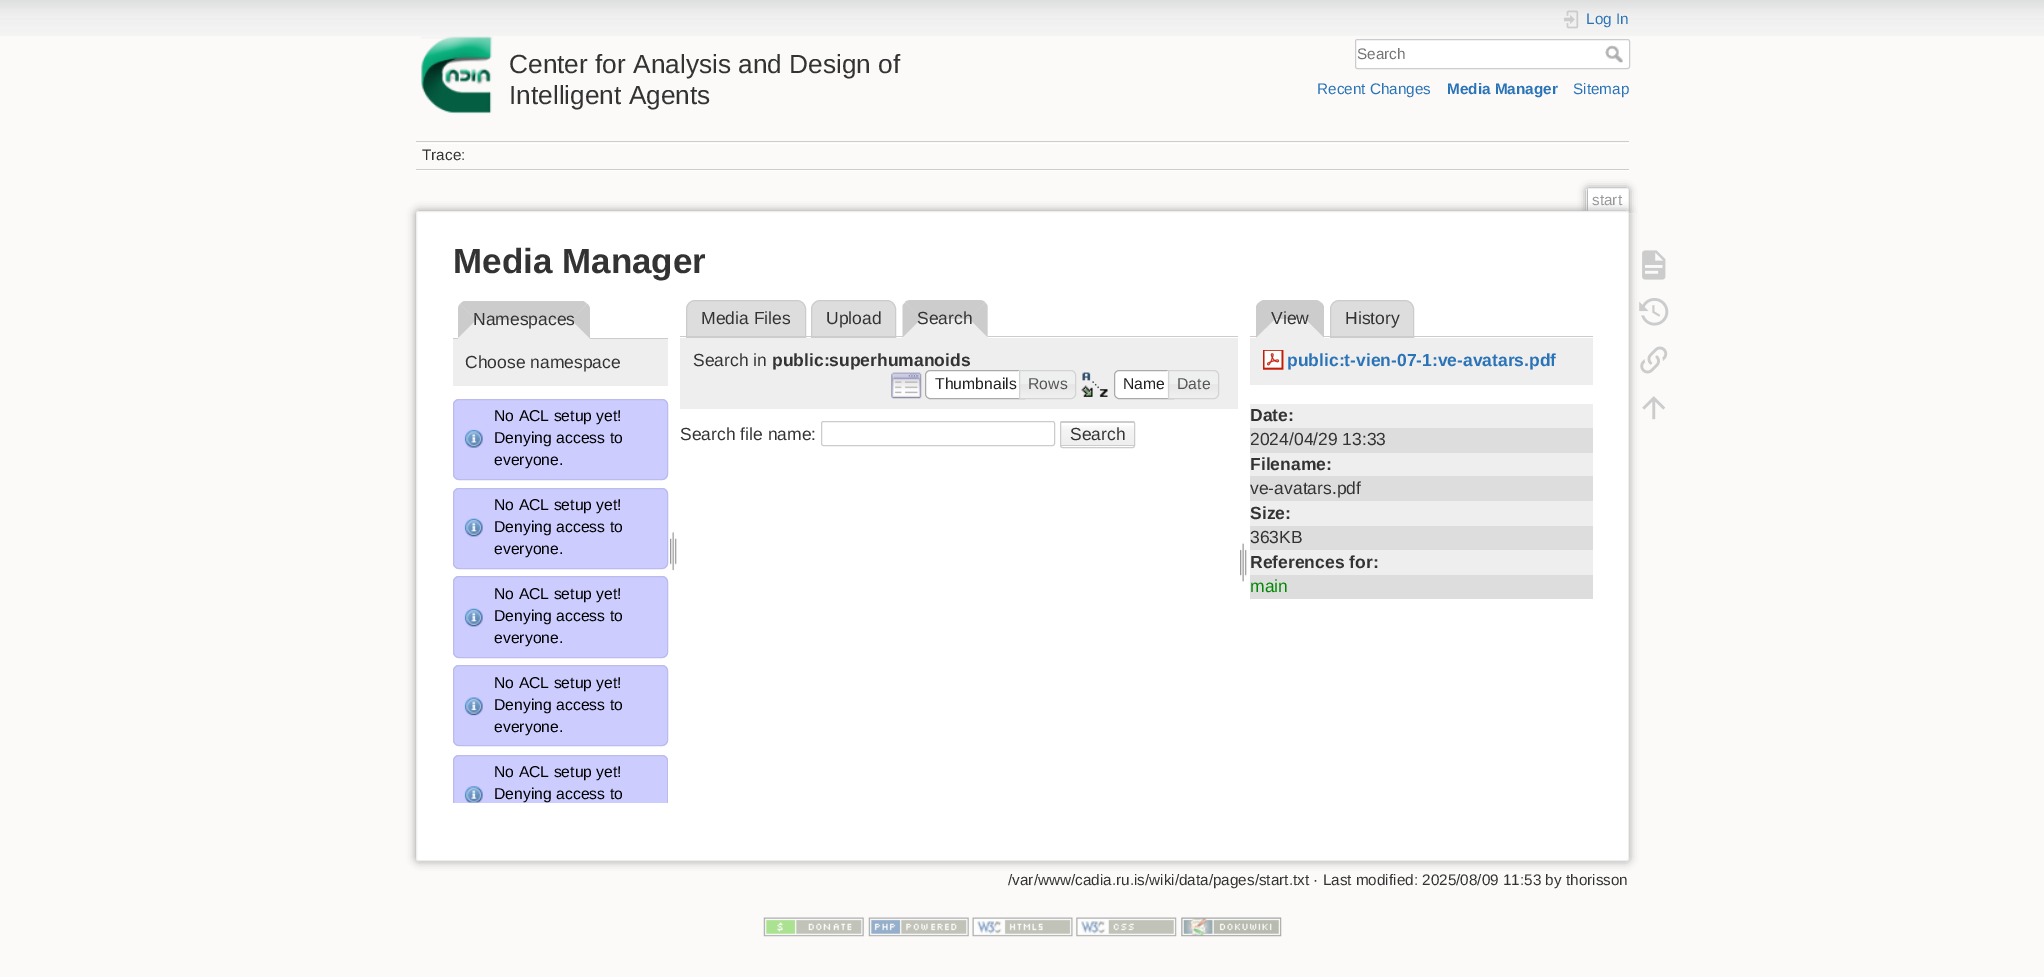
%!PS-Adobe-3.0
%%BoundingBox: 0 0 2044 977
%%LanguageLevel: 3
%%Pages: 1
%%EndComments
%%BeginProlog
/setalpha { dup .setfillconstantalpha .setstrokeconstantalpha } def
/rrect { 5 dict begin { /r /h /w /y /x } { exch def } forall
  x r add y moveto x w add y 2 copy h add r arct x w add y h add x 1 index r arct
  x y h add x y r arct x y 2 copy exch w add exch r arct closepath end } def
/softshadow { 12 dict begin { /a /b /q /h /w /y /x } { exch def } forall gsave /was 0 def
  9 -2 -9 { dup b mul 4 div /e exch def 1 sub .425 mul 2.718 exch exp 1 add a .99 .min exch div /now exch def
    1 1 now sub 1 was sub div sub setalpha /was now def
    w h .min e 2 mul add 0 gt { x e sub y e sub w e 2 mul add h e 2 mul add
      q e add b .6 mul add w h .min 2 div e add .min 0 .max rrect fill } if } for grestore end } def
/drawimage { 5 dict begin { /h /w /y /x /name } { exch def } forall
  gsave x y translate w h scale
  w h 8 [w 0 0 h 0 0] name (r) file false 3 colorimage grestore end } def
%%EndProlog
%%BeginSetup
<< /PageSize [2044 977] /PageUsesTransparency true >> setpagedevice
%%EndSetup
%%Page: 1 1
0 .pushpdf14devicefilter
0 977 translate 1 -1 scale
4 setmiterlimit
0.984 0.98 0.976 setrgbcolor
0 0 2044 977 rectfill
(images/1.raw) 0 0 2044 36 drawimage
(images/2.raw) 421 36 72 78 drawimage
(images/3.raw) 1564 10 15 19 drawimage
1 setgray
1355.5 39.5 274 29 2 rrect gsave fill grestore
0.8 setgray
stroke
(images/4.raw) 1605 45 18 18 drawimage
416 141 1213 1 rectfill
1 setgray
416 170 1213 1 rectfill
416 143 1213 1 rectfill
0.8 setgray
416 169 1213 1 rectfill
gsave
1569 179 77 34 rectclip
0.6 setgray
1586 188 43 25 2.5 4 1 softshadow
grestore
1 setgray
newpath 1589 189 moveto 1627 189 lineto 1627.5 189 1628 189.5 1628 190 curveto 1628 213 lineto 1588 213 lineto 1588 190 lineto 1588 189.5 1588.5 189 1589 189 curveto closepath fill
0.933 setgray
1588 188 40 1 rectfill
1628 189 1 24 rectfill
1586 189 1 24 rectfill
0.6 setgray
416 211 1213 650 2.5 4.5 1 softshadow
1 setgray
416.5 211.5 1212 649 2 rrect gsave fill grestore
0.933 setgray
stroke
0.8 setgray
453 338 215 1 rectfill
0.933 setgray
newpath 467 301 moveto 581 301 lineto 586 301 590 305 590 310 curveto 590 339 lineto 458 339 lineto 458 310 lineto 458 305 462 301 467 301 curveto closepath fill
0.8 setgray
newpath 583 301 moveto 464 301 lineto 462 302 461 303 460 304 curveto 476 320 lineto 571 320 lineto 587 304 lineto 586 303 585 302 583 301 curveto closepath fill
newpath 587.5 304 moveto 571 320 lineto 590 339 lineto 590 310 lineto 590 307.5 589 305.5 587.5 304 curveto closepath fill
0.933 setgray
newpath 590 339 moveto 571 320 lineto 476 320 lineto 458 338 lineto 458 339 lineto closepath fill
0.8 setgray
newpath 458 338 moveto 476 320 lineto 460 304 lineto 458.5 305.5 458 307.5 458 310 curveto closepath fill
0.933 setgray
453 339 215 47 rectfill
0.8 0.8 1 setrgbcolor
453 399 215 81 6 rrect fill
(images/5.raw) 464 429 19 19 drawimage
0.733 0.733 0.933 setrgbcolor
453.5 399.5 214 80 5.5 rrect stroke
0.8 0.8 1 setrgbcolor
453 488 215 81 6 rrect fill
(images/6.raw) 464 518 19 19 drawimage
0.733 0.733 0.933 setrgbcolor
453.5 488.5 214 80 5.5 rrect stroke
0.8 0.8 1 setrgbcolor
453 576 215 82 6 rrect fill
(images/6.raw) 464 608 19 19 drawimage
0.733 0.733 0.933 setrgbcolor
453.5 576.5 214 81 5.5 rrect stroke
0.8 0.8 1 setrgbcolor
453 665 215 81 6 rrect fill
(images/7.raw) 464 697 19 19 drawimage
0.733 0.733 0.933 setrgbcolor
453.5 665.5 214 80 5.5 rrect stroke
0.8 0.8 1 setrgbcolor
newpath 459 755 moveto 662 755 lineto 665.5 755 668 757.5 668 761 curveto 668 803 lineto 453 803 lineto 453 761 lineto 453 757.5 455.5 755 459 755 curveto closepath fill
(images/8.raw) 464 786 19 17 drawimage
gsave
453 399 215 404 rectclip
0.733 0.733 0.933 setrgbcolor
453.5 755.5 214 80 5.5 rrect stroke
grestore
(images/9.raw) 670 531 7 40 drawimage
0.867 setgray
newpath 695 300.5 moveto 797 300.5 lineto 801.5 300.5 805.5 304.5 805.5 309 curveto 805.5 337.5 lineto 686.5 337.5 lineto 686.5 309 lineto 686.5 304.5 690.5 300.5 695 300.5 curveto closepath gsave fill grestore
0.8 setgray
stroke
0.867 setgray
newpath 820 300.5 moveto 887 300.5 lineto 891.5 300.5 895.5 304.5 895.5 309 curveto 895.5 337.5 lineto 811.5 337.5 lineto 811.5 309 lineto 811.5 304.5 815.5 300.5 820 300.5 curveto closepath gsave fill grestore
0.8 setgray
stroke
680 336 558 1 rectfill
0.933 setgray
newpath 912 300 moveto 979 300 lineto 984 300 988 304 988 309 curveto 988 338 lineto 903 338 lineto 903 309 lineto 903 304 907 300 912 300 curveto closepath fill
0.8 setgray
newpath 911 300 moveto 979 300 lineto 981 300 984 301 985 302 curveto 969 319 lineto 921 319 lineto 905 302 lineto 906 301 909 300 911 300 curveto closepath fill
newpath 985 302.5 moveto 969 319 lineto 987.5 337.5 lineto 987.5 306 lineto 987 304.5 986 303.5 985 302.5 curveto closepath fill
0.933 setgray
newpath 988 338 moveto 969 319 lineto 921 319 lineto 902 338 lineto closepath fill
0.8 setgray
newpath 902.5 337.5 moveto 921 319 lineto 905 302.5 lineto 904 303.5 903 304.5 902.5 306 curveto closepath fill
0.933 setgray
680 338 558 71 rectfill
(images/10.raw) 891 372 31 27 drawimage
1 setgray
newpath 930 370 moveto 1025 370 lineto 1025 399 lineto 930 399 lineto 927 399 925 397 925 394 curveto 925 375 lineto 925 372 927 370 930 370 curveto closepath fill
0.984 setgray
926 371 1 1 rectfill
0.667 setgray
newpath 930 370.5 moveto 1024.5 370.5 lineto 1024.5 398.5 lineto 930 398.5 lineto 927.5 398.5 925.5 396.5 925.5 394 curveto 925.5 375 lineto 925.5 372.5 927.5 370.5 930 370.5 curveto closepath stroke
(images/11.raw) 1018 370 58 29 drawimage
0.827 setgray
newpath 1019.5 370.5 moveto 1071 370.5 lineto 1073.5 370.5 1075.5 372.5 1075.5 375 curveto 1075.5 394 lineto 1075.5 396.5 1073.5 398.5 1071 398.5 curveto 1019.5 398.5 lineto closepath stroke
(images/12.raw) 1081 372 27 25 drawimage
1 setgray
newpath 1119 370 moveto 1174 370 lineto 1174 399 lineto 1119 399 lineto 1116 399 1114 397 1114 394 curveto 1114 375 lineto 1114 372 1116 370 1119 370 curveto closepath fill
(images/13.raw) 1114 370 3 28 drawimage
0.667 setgray
newpath 1119 370.5 moveto 1173.5 370.5 lineto 1173.5 398.5 lineto 1119 398.5 lineto 1116.5 398.5 1114.5 396.5 1114.5 394 curveto 1114.5 375 lineto 1114.5 372.5 1116.5 370.5 1119 370.5 curveto closepath stroke
(images/14.raw) 1167 370 52 29 drawimage
0.827 setgray
newpath 1168.5 370.5 moveto 1214 370.5 lineto 1216.5 370.5 1218.5 372.5 1218.5 375 curveto 1218.5 394 lineto 1218.5 396.5 1216.5 398.5 1214 398.5 curveto 1168.5 398.5 lineto closepath stroke
0.8 setgray
821.5 421.5 233 24 2 rrect stroke
gsave
1060 421 75 27 2.5 rrect clip newpath
gsave newpath 1060 421 moveto 1135 421 lineto 1135 423 lineto 1060 423 lineto closepath clip newpath
<< /ShadingType 2 /ColorSpace /DeviceRGB /Coords [1098 399 1098 423] /Extend [true true] /Function << /FunctionType 3 /Domain [0 1] /Functions [<< /FunctionType 2 /Domain [0 1] /C0 [1 1 1] /C1 [0.957 0.957 0.957] /N 1 >> << /FunctionType 2 /Domain [0 1] /C0 [0.957 0.957 0.957] /C1 [0.933 0.933 0.933] /N 1 >> << /FunctionType 2 /Domain [0 1] /C0 [0.8 0.8 0.8] /C1 [0.8 0.8 0.8] /N 1 >>] /Bounds [0.3 0.99] /Encode [0 1 0 1 0 1] >> >> shfill grestore
grestore
gsave newpath 1060 425 moveto 1135 425 lineto 1135 446 lineto 1060 446 lineto closepath clip newpath
<< /ShadingType 2 /ColorSpace /DeviceRGB /Coords [1098 423 1098 446] /Extend [true true] /Function << /FunctionType 3 /Domain [0 1] /Functions [<< /FunctionType 2 /Domain [0 1] /C0 [1 1 1] /C1 [0.957 0.957 0.957] /N 1 >> << /FunctionType 2 /Domain [0 1] /C0 [0.957 0.957 0.957] /C1 [0.933 0.933 0.933] /N 1 >> << /FunctionType 2 /Domain [0 1] /C0 [0.8 0.8 0.8] /C1 [0.8 0.8 0.8] /N 1 >>] /Bounds [0.3 0.99] /Encode [0 1 0 1 0 1] >> >> shfill grestore
1060.5 421.5 74 26 2 rrect stroke
(images/15.raw) 1240 543 7 39 drawimage
0.867 setgray
newpath 1339 300.5 moveto 1405 300.5 lineto 1409.5 300.5 1413.5 304.5 1413.5 309 curveto 1413.5 337.5 lineto 1330.5 337.5 lineto 1330.5 309 lineto 1330.5 304.5 1334.5 300.5 1339 300.5 curveto closepath gsave fill grestore
0.8 setgray
stroke
1250 336 343 1 rectfill
0.933 setgray
newpath 1265 300 moveto 1315 300 lineto 1320 300 1324 304 1324 309 curveto 1324 338 lineto 1256 338 lineto 1256 309 lineto 1256 304 1260 300 1265 300 curveto closepath fill
0.8 setgray
newpath 1265 300 moveto 1315 300 lineto 1317 300 1320 301 1321 303 curveto 1305 319 lineto 1275 319 lineto 1259 303 lineto 1260 301 1263 300 1265 300 curveto closepath fill
newpath 1321 302.5 moveto 1305 319 lineto 1324 337.5 lineto 1324 307 lineto 1323.5 305 1322.5 303.5 1321 302.5 curveto closepath fill
0.933 setgray
newpath 1324 338 moveto 1305 319 lineto 1275 319 lineto 1256 338 lineto closepath fill
0.8 setgray
newpath 1256 337.5 moveto 1275 319 lineto 1259 302.5 lineto 1257.5 303.5 1256.5 305 1256 307 curveto closepath fill
0.933 setgray
1250 338 343 47 rectfill
(images/16.raw) 1263 350 21 20 drawimage
1250 404 343 24 rectfill
0.867 setgray
1250 428 343 25 rectfill
0.933 setgray
1250 453 343 23 rectfill
0.867 setgray
1250 476 343 25 rectfill
0.933 setgray
1250 501 343 25 rectfill
0.867 setgray
1250 526 343 24 rectfill
0.933 setgray
1250 550 343 25 rectfill
0.867 setgray
1250 575 343 24 rectfill
(images/17.raw) 1642 250 24 30 drawimage
(images/18.raw) 1639 298 30 28 drawimage
(images/19.raw) 1640 346 28 28 drawimage
(images/20.raw) 1642 396 24 24 drawimage
(images/21.raw) 763 917 101 20 drawimage
(images/22.raw) 868 917 101 20 drawimage
(images/23.raw) 972 917 101 20 drawimage
(images/24.raw) 1076 917 101 20 drawimage
(images/25.raw) 1181 917 101 20 drawimage
/LiberationSans-Regular [26.25 0 0 -26.25 0 0] selectfont
0.2 setgray
509 73 moveto (Center for Analysis and Design of) show
509 104 moveto (Intelligent Agents) show
/LiberationSans-Regular [15.3 0 0 -15.3 0 0] selectfont
0.169 0.451 0.718 setrgbcolor
1586 24 moveto (Log In) show
0.459 setgray
1357 59 moveto (Search) show
0.169 0.451 0.718 setrgbcolor
1317 94 moveto (Recent Changes) show
/LiberationSans-Bold [15.3 0 0 -15.3 0 0] selectfont
1447 94 moveto (Media Manager) show
/LiberationSans-Regular [15.3 0 0 -15.3 0 0] selectfont
1573 94 moveto (Sitemap) show
0.2 setgray
422 160 moveto (Trace:) show
0.6 setgray
1592 205 moveto (start) show
/LiberationSans-Bold [35 0 0 -35 0 0] selectfont
0.2 setgray
453 273 moveto (Media Manager) show
/LiberationSans-Regular [17.5 0 0 -17.5 0 0] selectfont
473 325 moveto (Namespaces) show
465 368 moveto (Choose namespace) show
/LiberationSans-Regular [15.75 0 0 -15.75 0 0] selectfont
0 setgray
494 421 moveto (No ACL setup yet!) show
494 443 moveto (Denying access to) show
494 465 moveto (everyone.) show
494 510 moveto (No ACL setup yet!) show
494 532 moveto (Denying access to) show
494 554 moveto (everyone.) show
494 599 moveto (No ACL setup yet!) show
494 621 moveto (Denying access to) show
494 643 moveto (everyone.) show
494 688 moveto (No ACL setup yet!) show
494 710 moveto (Denying access to) show
494 732 moveto (everyone.) show
494 777 moveto (No ACL setup yet!) show
494 799 moveto (Denying access to) show
/LiberationSans-Regular [17.5 0 0 -17.5 0 0] selectfont
0.2 setgray
701 324 moveto (Media Files) show
826 324 moveto (Upload) show
917 324 moveto (Search) show
693 366 moveto (Search in) show
/LiberationSans-Bold [17.5 0 0 -17.5 0 0] selectfont
772 366 moveto (public:superhumanoids) show
/LiberationSans-Regular [15.75 0 0 -15.75 0 0] selectfont
0.129 setgray
935 389 moveto (Thumbnails) show
0.333 setgray
1028 389 moveto (Rows) show
0.129 setgray
1123 389 moveto (Name) show
0.333 setgray
1177 389 moveto (Date) show
/LiberationSans-Regular [17.5 0 0 -17.5 0 0] selectfont
0.2 setgray
680 440 moveto (Search file name:) show
1070 440 moveto (Search) show
1271 324 moveto (View) show
1345 324 moveto (History) show
/LiberationSans-Bold [17.5 0 0 -17.5 0 0] selectfont
0.169 0.451 0.718 setrgbcolor
1287 366 moveto (public:t-vien-07-1:ve-avatars.pdf) show
0.2 setgray
1250 421 moveto (Date:) show
/LiberationSans-Regular [17.5 0 0 -17.5 0 0] selectfont
1250 445 moveto (2024/04/29 13:33) show
/LiberationSans-Bold [17.5 0 0 -17.5 0 0] selectfont
1250 470 moveto (Filename:) show
/LiberationSans-Regular [17.5 0 0 -17.5 0 0] selectfont
1250 494 moveto (ve-avatars.pdf) show
/LiberationSans-Bold [17.5 0 0 -17.5 0 0] selectfont
1250 519 moveto (Size:) show
/LiberationSans-Regular [17.5 0 0 -17.5 0 0] selectfont
1250 543 moveto (363KB) show
/LiberationSans-Bold [17.5 0 0 -17.5 0 0] selectfont
1250 568 moveto (References for:) show
/LiberationSans-Regular [17.5 0 0 -17.5 0 0] selectfont
0 0.533 0 setrgbcolor
1250 592 moveto (main) show
/LiberationSans-Regular [15.3 0 0 -15.3 0 0] selectfont
0.2 setgray
1008 885 moveto (/var/www/cadia.ru.is/wiki/data/pages/start.txt · Last modified: 2025/08/09 11:53 by thorisson) show
.poppdf14devicefilter showpage
%%EOF
